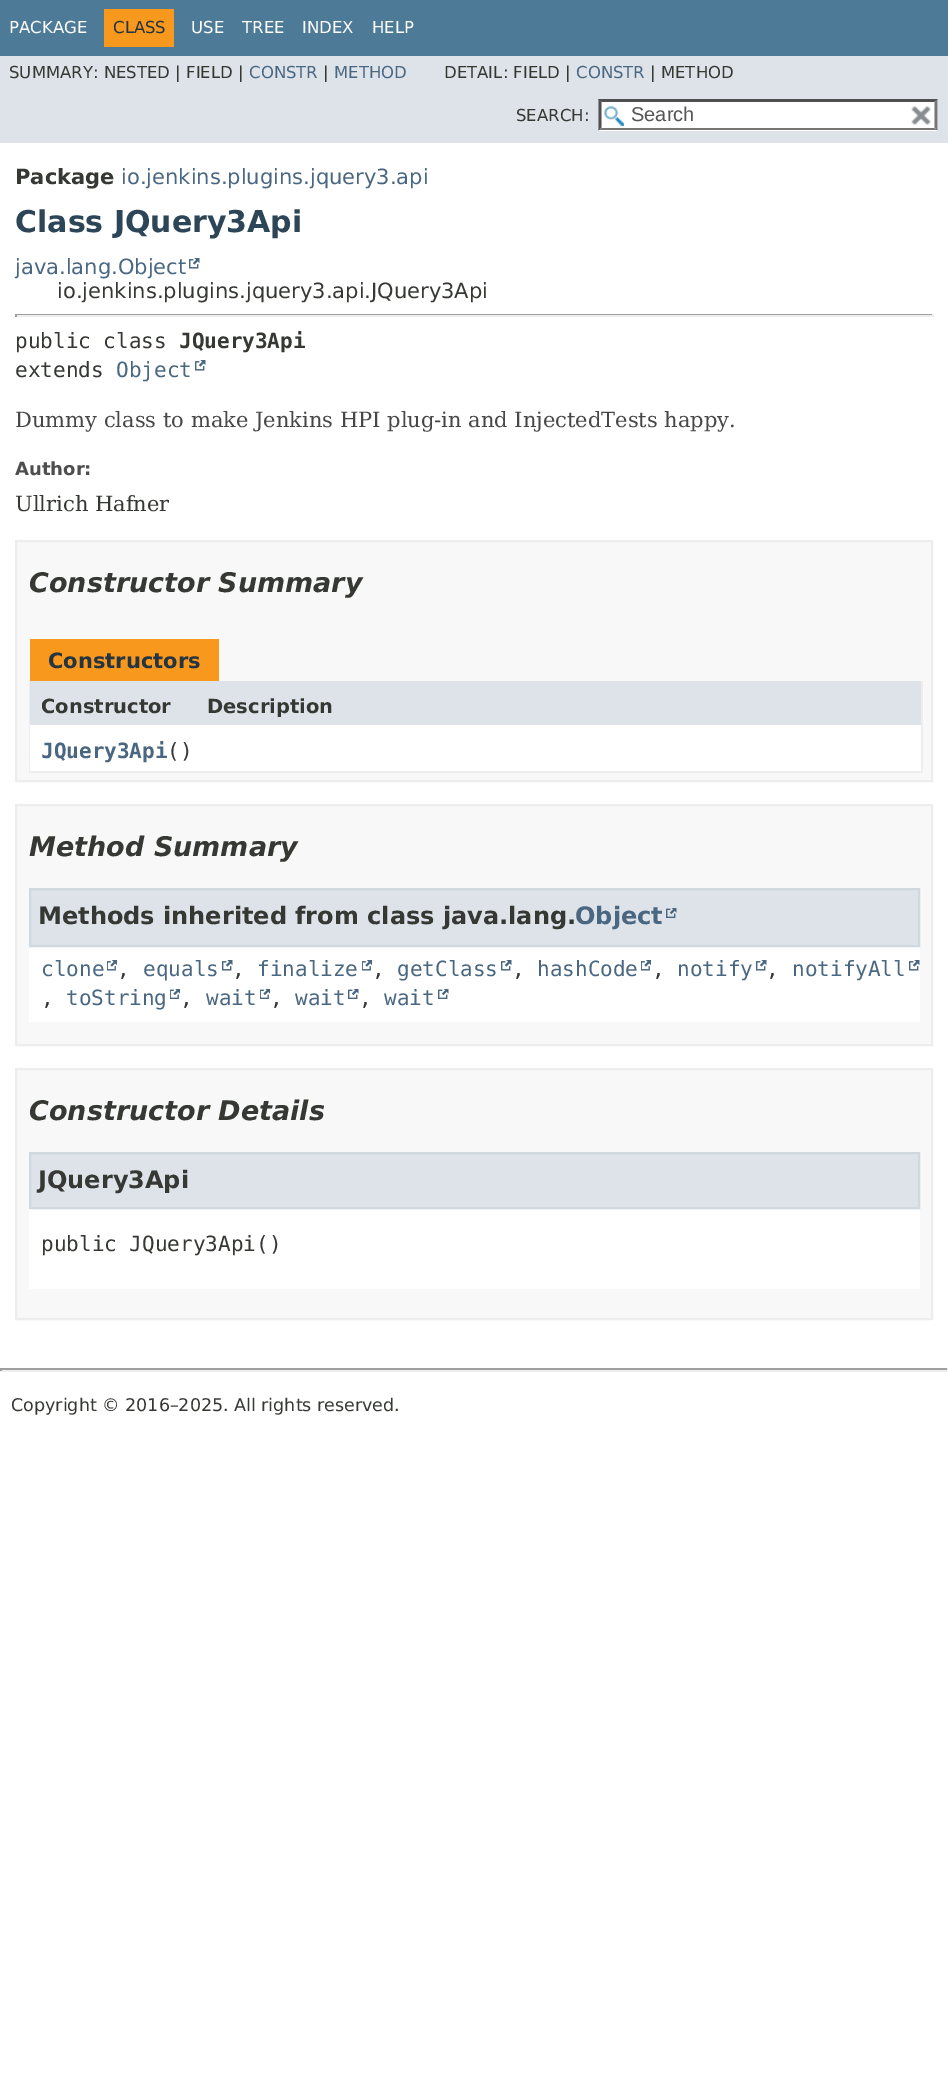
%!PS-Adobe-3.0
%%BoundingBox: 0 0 948 2081
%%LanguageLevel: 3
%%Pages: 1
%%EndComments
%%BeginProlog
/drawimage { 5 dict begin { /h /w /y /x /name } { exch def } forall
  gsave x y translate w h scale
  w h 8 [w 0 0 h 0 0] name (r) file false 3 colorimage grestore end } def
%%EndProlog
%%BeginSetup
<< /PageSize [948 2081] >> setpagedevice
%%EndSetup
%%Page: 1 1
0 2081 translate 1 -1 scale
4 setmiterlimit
1 setgray
0 0 948 2081 rectfill
0.302 0.478 0.592 setrgbcolor
0 0 948 56 rectfill
0.973 0.596 0.114 setrgbcolor
104 9 70 38 rectfill
0.871 0.89 0.914 setrgbcolor
0 56 948 87 rectfill
1 setgray
599 99 339 32 rectfill
(images/1.raw) 604 106 20 20 drawimage
0.31 setgray
newpath 598 99 moveto 938 99 lineto 934 102 lineto 602 102 lineto closepath fill
0.463 setgray
newpath 937.5 99 moveto 937.5 130.5 lineto 934.5 127.5 lineto 934.5 102 lineto closepath fill
newpath 938 130 moveto 598 130 lineto 602 128 lineto 934 128 lineto closepath fill
0.31 setgray
newpath 598.5 130.5 moveto 598.5 99 lineto 601.5 102 lineto 601.5 127.5 lineto closepath fill
(images/2.raw) 911 106 20 19 drawimage
(images/3.raw) 189 258 11 11 drawimage
0.624 setgray
15 314 918 1 rectfill
0.933 setgray
932 314 2 3 rectfill
15 315 918 2 rectfill
0.624 setgray
15 314 2 3 rectfill
(images/3.raw) 195 360 11 11 drawimage
0.973 setgray
newpath 16 541 moveto 932 541 lineto 932 781 lineto 16 781 lineto closepath gsave fill grestore
0.929 setgray
2 setlinewidth
stroke
0.973 0.596 0.114 setrgbcolor
30 639 189 42 rectfill
0.933 setgray
921 681 2 92 rectfill
29 771 894 2 rectfill
29 681 2 92 rectfill
0.871 0.89 0.914 setrgbcolor
30 681 891 44 rectfill
1 setgray
30 725 891 46 rectfill
0.973 setgray
newpath 16 805 moveto 932 805 lineto 932 1045 lineto 16 1045 lineto closepath gsave fill grestore
0.929 setgray
stroke
1 setgray
29 947 891 75 rectfill
0.871 0.89 0.914 setrgbcolor
newpath 30 889 moveto 919 889 lineto 919 946 lineto 30 946 lineto closepath gsave fill grestore
0.816 0.851 0.878 setrgbcolor
stroke
(images/4.raw) 666 908 11 10 drawimage
(images/5.raw) 107 960 10 11 drawimage
(images/3.raw) 222 960 11 11 drawimage
(images/5.raw) 362 960 10 11 drawimage
(images/3.raw) 501 960 11 11 drawimage
(images/5.raw) 641 960 10 11 drawimage
(images/3.raw) 756 960 11 11 drawimage
(images/3.raw) 909 960 11 11 drawimage
(images/6.raw) 170 989 10 10 drawimage
(images/6.raw) 260 989 10 10 drawimage
(images/7.raw) 348 989 11 10 drawimage
(images/7.raw) 438 989 11 10 drawimage
0.973 setgray
newpath 16 1069 moveto 932 1069 lineto 932 1319 lineto 16 1319 lineto closepath gsave fill grestore
0.929 setgray
stroke
1 setgray
29 1209 891 80 rectfill
0.871 0.89 0.914 setrgbcolor
newpath 30 1153 moveto 919 1153 lineto 919 1208 lineto 30 1208 lineto closepath gsave fill grestore
0.816 0.851 0.878 setrgbcolor
stroke
0.624 setgray
0 1368 948 2 rectfill
0.933 setgray
947 1368 1 3 rectfill
0 1370 948 2 rectfill
0.624 setgray
0 1368 2 3 rectfill
/DejaVuSans-Regular [16.5 0 0 -16.5 0 0] selectfont
1 setgray
9 33 moveto (PACKAGE) show
0.145 0.204 0.255 setrgbcolor
113 33 moveto (CLASS) show
1 setgray
191 33 moveto (USE) show
242 33 moveto (TREE) show
302 33 moveto (INDEX) show
372 33 moveto (HELP) show
0.208 0.22 0.2 setrgbcolor
9 78 moveto (SUMMARY: NESTED | FIELD |) show
0.29 0.404 0.51 setrgbcolor
249 78 moveto (CONSTR) show
0.208 0.22 0.2 setrgbcolor
323 78 moveto (|) show
0.29 0.404 0.51 setrgbcolor
334 78 moveto (METHOD) show
0.208 0.22 0.2 setrgbcolor
444 78 moveto (DETAIL: FIELD |) show
0.29 0.404 0.51 setrgbcolor
576 78 moveto (CONSTR) show
0.208 0.22 0.2 setrgbcolor
650 78 moveto (| METHOD) show
516 121 moveto (SEARCH:) show
/LiberationSans-Regular [20 0 0 -20 0 0] selectfont
0.329 setgray
631 121 moveto (Search) show
/DejaVuSans-Bold [21 0 0 -21 0 0] selectfont
0.208 0.22 0.2 setrgbcolor
15 184 moveto (Package) show
/DejaVuSans-Regular [21 0 0 -21 0 0] selectfont
0.29 0.404 0.51 setrgbcolor
121 184 moveto (io.jenkins.plugins.jquery3.api) show
/DejaVuSans-Bold [30 0 0 -30 0 0] selectfont
0.173 0.271 0.341 setrgbcolor
15 232 moveto (Class JQuery3Api) show
/DejaVuSans-Regular [21 0 0 -21 0 0] selectfont
0.29 0.404 0.51 setrgbcolor
15 274 moveto (java.lang.Object) show
0.208 0.22 0.2 setrgbcolor
57 298 moveto (io.jenkins.plugins.jquery3.api.JQuery3Api) show
/DejaVuSansMono-Regular [21 0 0 -21 0 0] selectfont
15 348 moveto (public class) show
/DejaVuSansMono-Bold [21 0 0 -21 0 0] selectfont
179 348 moveto (JQuery3Api) show
/DejaVuSansMono-Regular [21 0 0 -21 0 0] selectfont
15 377 moveto (extends) show
0.29 0.404 0.51 setrgbcolor
116 377 moveto (Object) show
/DejaVuSerif-Regular [21 0 0 -21 0 0] selectfont
0.278 setgray
15 427 moveto (Dummy class to make Jenkins HPI plug-in and InjectedTests happy.) show
/DejaVuSans-Bold [18 0 0 -18 0 0] selectfont
0.306 setgray
15 475 moveto (Author:) show
/DejaVuSerif-Regular [21 0 0 -21 0 0] selectfont
0.208 0.22 0.2 setrgbcolor
15 511 moveto (Ullrich Hafner) show
/DejaVuSans-BoldItalic [27 0 0 -27 0 0] selectfont
29 592 moveto (Constructor Summary) show
/DejaVuSans-Bold [21 0 0 -21 0 0] selectfont
0.145 0.204 0.255 setrgbcolor
48 668 moveto (Constructors) show
/DejaVuSans-Bold [19.5 0 0 -19.5 0 0] selectfont
0.208 0.22 0.2 setrgbcolor
41 713 moveto (Constructor) show
207 713 moveto (Description) show
/DejaVuSansMono-Bold [21 0 0 -21 0 0] selectfont
0.29 0.404 0.51 setrgbcolor
41 758 moveto (JQuery3Api) show
/DejaVuSansMono-Regular [21 0 0 -21 0 0] selectfont
0.208 0.22 0.2 setrgbcolor
167 758 moveto (\(\)) show
/DejaVuSans-BoldItalic [27 0 0 -27 0 0] selectfont
29 856 moveto (Method Summary) show
/DejaVuSans-Bold [24 0 0 -24 0 0] selectfont
38 924 moveto (Methods inherited from class java.lang.) show
0.29 0.404 0.51 setrgbcolor
575 924 moveto (Object) show
/DejaVuSansMono-Regular [21 0 0 -21 0 0] selectfont
41 976 moveto (clone) show
0.208 0.22 0.2 setrgbcolor
117 976 moveto (,) show
0.29 0.404 0.51 setrgbcolor
143 976 moveto (equals) show
0.208 0.22 0.2 setrgbcolor
232 976 moveto (,) show
0.29 0.404 0.51 setrgbcolor
257 976 moveto (finalize) show
0.208 0.22 0.2 setrgbcolor
372 976 moveto (,) show
0.29 0.404 0.51 setrgbcolor
397 976 moveto (getClass) show
0.208 0.22 0.2 setrgbcolor
512 976 moveto (,) show
0.29 0.404 0.51 setrgbcolor
537 976 moveto (hashCode) show
0.208 0.22 0.2 setrgbcolor
652 976 moveto (,) show
0.29 0.404 0.51 setrgbcolor
677 976 moveto (notify) show
0.208 0.22 0.2 setrgbcolor
766 976 moveto (,) show
0.29 0.404 0.51 setrgbcolor
792 976 moveto (notifyAll) show
0.208 0.22 0.2 setrgbcolor
41 1005 moveto (,) show
0.29 0.404 0.51 setrgbcolor
66 1005 moveto (toString) show
0.208 0.22 0.2 setrgbcolor
180 1005 moveto (,) show
0.29 0.404 0.51 setrgbcolor
206 1005 moveto (wait) show
0.208 0.22 0.2 setrgbcolor
270 1005 moveto (,) show
0.29 0.404 0.51 setrgbcolor
295 1005 moveto (wait) show
0.208 0.22 0.2 setrgbcolor
359 1005 moveto (,) show
0.29 0.404 0.51 setrgbcolor
384 1005 moveto (wait) show
/DejaVuSans-BoldItalic [27 0 0 -27 0 0] selectfont
0.208 0.22 0.2 setrgbcolor
29 1120 moveto (Constructor Details) show
/DejaVuSans-Bold [24 0 0 -24 0 0] selectfont
38 1188 moveto (JQuery3Api) show
/DejaVuSansMono-Regular [21 0 0 -21 0 0] selectfont
41 1251 moveto (public JQuery3Api\(\)) show
/DejaVuSans-Regular [17.5 0 0 -17.5 0 0] selectfont
11 1411 moveto (Copyright © 2016–2025. All rights reserved.) show
showpage
%%EOF
